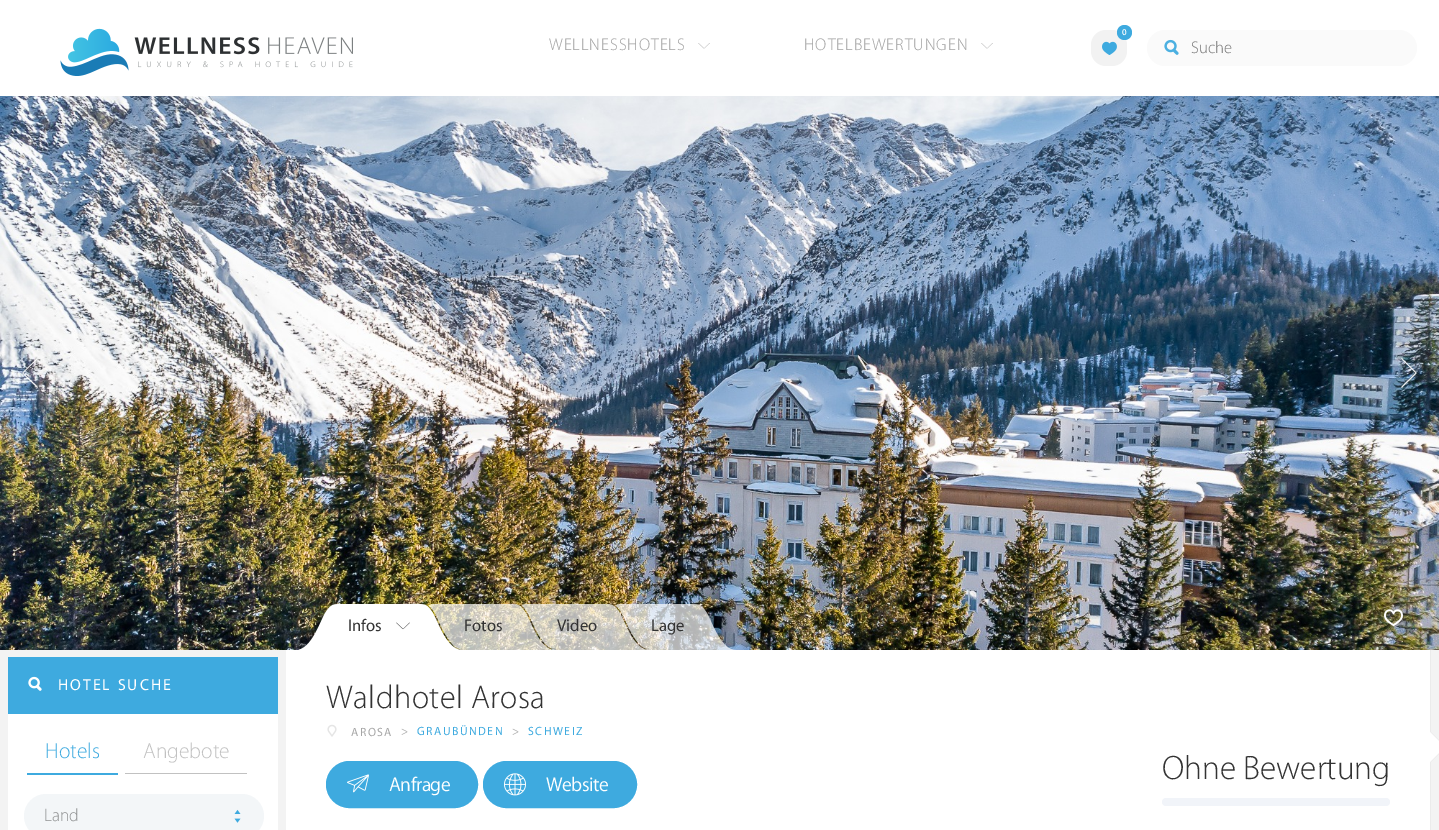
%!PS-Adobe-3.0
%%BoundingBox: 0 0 1439 830
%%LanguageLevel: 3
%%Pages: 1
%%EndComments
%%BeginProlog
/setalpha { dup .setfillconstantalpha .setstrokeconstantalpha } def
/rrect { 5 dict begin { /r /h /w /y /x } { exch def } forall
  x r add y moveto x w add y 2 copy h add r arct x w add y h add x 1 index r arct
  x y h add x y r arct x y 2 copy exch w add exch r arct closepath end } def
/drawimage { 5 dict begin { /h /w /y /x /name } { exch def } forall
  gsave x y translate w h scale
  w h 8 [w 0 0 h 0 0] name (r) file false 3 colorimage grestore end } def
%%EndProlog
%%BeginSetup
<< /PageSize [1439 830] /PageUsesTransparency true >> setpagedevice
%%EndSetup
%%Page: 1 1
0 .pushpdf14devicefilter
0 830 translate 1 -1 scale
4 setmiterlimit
0.953 setgray
0 0 1439 830 rectfill
1 setgray
0 0 1439 96 rectfill
(images/1.raw) 60 28 293 48 drawimage
0.949 setgray
1091 30 36 36 15 rrect fill
0.243 0.667 0.875 setrgbcolor
newpath 1124.5 32.5 7.5 0 360 arc closepath fill
(images/2.raw) 1102 41 15 14 drawimage
(images/3.raw) 698 43 12 6 drawimage
(images/3.raw) 981 43 12 6 drawimage
0.98 setgray
1147 30 270 36 18 rrect fill
(images/4.raw) 1164 39 15 16 drawimage
(images/5.raw) 0 96 1439 554 drawimage
0.9 setalpha
1 setgray
newpath 22.5 373.5 moveto 37.5 388 lineto 37.5 386.5 lineto 23 373 lineto 37.5 359 lineto 37.5 358 lineto 22.5 372.5 lineto closepath fill
newpath 1416.5 372.5 moveto 1401.5 358 lineto 1401.5 359 lineto 1415.5 373 lineto 1401.5 386.5 lineto 1401.5 388 lineto 1416.5 373.5 lineto closepath fill
0.1 setalpha
0 setgray
1373 598 40 40 5 rrect fill
1 setalpha
(images/6.raw) 1384 609 19 18 drawimage
0.243 0.667 0.875 setrgbcolor
8 657 270 57 rectfill
(images/7.raw) 28 676 14 15 drawimage
1 setgray
8 714 270 116 rectfill
0.243 0.667 0.875 setrgbcolor
27 773 91 2 rectfill
0.757 setgray
125 773 122 1 rectfill
0.953 0.965 0.973 setrgbcolor
24 794 240 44 22 rrect fill
(images/8.raw) 234 809 7 14 drawimage
(images/9.raw) 299 604 39 46 drawimage
1 setgray
338 604 82 46 rectfill
(images/10.raw) 396 622 14 8 drawimage
(images/12.raw) 428 604 36 46 drawimage
(images/11.raw) 420 604 42 46 drawimage
0.7 setalpha
464 604 49 46 rectfill
1 setalpha
(images/13.raw) 513 604 42 46 drawimage
(images/14.raw) 521 604 36 46 drawimage
0.7 setalpha
557 604 50 46 rectfill
1 setalpha
(images/15.raw) 607 604 42 46 drawimage
(images/16.raw) 615 604 36 46 drawimage
0.7 setalpha
651 604 43 46 rectfill
1 setalpha
(images/17.raw) 694 604 42 46 drawimage
286 650 1144 180 rectfill
0.922 setgray
1430 650 1 180 rectfill
(images/18.raw) 327 724 10 13 drawimage
newpath 1430 763 moveto 1430 731 lineto 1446 747 lineto closepath fill
1 setgray
newpath 1430 762 moveto 1430 732 lineto 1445 747 lineto closepath fill
0.243 0.667 0.875 setrgbcolor
326.5 761.5 151 46 23 rrect gsave fill grestore
stroke
(images/19.raw) 347 774 22 19 drawimage
483.5 761.5 153 46 23 rrect gsave fill grestore
stroke
(images/20.raw) 504 773 22 23 drawimage
0.945 0.957 0.976 setrgbcolor
1162 798 228 8 4 rrect fill
/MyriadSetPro-SemiBold [9 0 0 -9 0 0] selectfont
1 setgray
1122 35 moveto (0) show
/MyriadSetPro-Thin [17 0 0 -17 0 0] selectfont
0.627 setgray
549 50 moveto 1 0 (WELLNESSHOTELS) ashow
804 50 moveto 1 0 (HOTELBEWERTUNGEN) ashow
0.459 setgray
1191 53 moveto (Suche) show
/MyriadSetPro-Medium [16 0 0 -16 0 0] selectfont
1 setgray
58 690 moveto 2 0 (HOTEL SUCHE) ashow
/MyriadSetPro-Thin [22 0 0 -22 0 0] selectfont
0.243 0.667 0.875 setrgbcolor
45 758 moveto (Hotels) show
0.757 setgray
143 758 moveto (Angebote) show
/MyriadSetPro-Thin [18 0 0 -18 0 0] selectfont
0.557 0.565 0.569 setrgbcolor
44 821 moveto (Land) show
/MyriadSetPro-Medium [17 0 0 -17 0 0] selectfont
0.2 setgray
348 631 moveto (Infos) show
464 631 moveto (Fotos) show
557 631 moveto (Video) show
651 631 moveto (Lage) show
/MyriadSetPro-Thin [33 0 0 -33 0 0] selectfont
326 708 moveto 0.5 0 (Waldhotel Arosa) ashow
/MyriadSetPro-Medium [12 0 0 -12 0 0] selectfont
0.651 setgray
351 736 moveto 1.5 0 (AROSA) ashow
401 735 moveto 1.5 0 (>) ashow
0.243 0.667 0.875 setrgbcolor
417 735 moveto 1.5 0 (GRAUBÜNDEN) ashow
0.651 setgray
512 735 moveto 1.5 0 (>) ashow
0.243 0.667 0.875 setrgbcolor
528 735 moveto 1.5 0 (SCHWEIZ) ashow
/MyriadSetPro-Regular [20 0 0 -20 0 0] selectfont
1 setgray
389 791 moveto -0.5 0 (Anfrage) ashow
546 791 moveto -0.5 0 (Website) ashow
/MyriadSetPro-Thin [34 0 0 -34 0 0] selectfont
0.2 setgray
1162 779 moveto (Ohne Bewertung) show
.poppdf14devicefilter showpage
%%EOF
